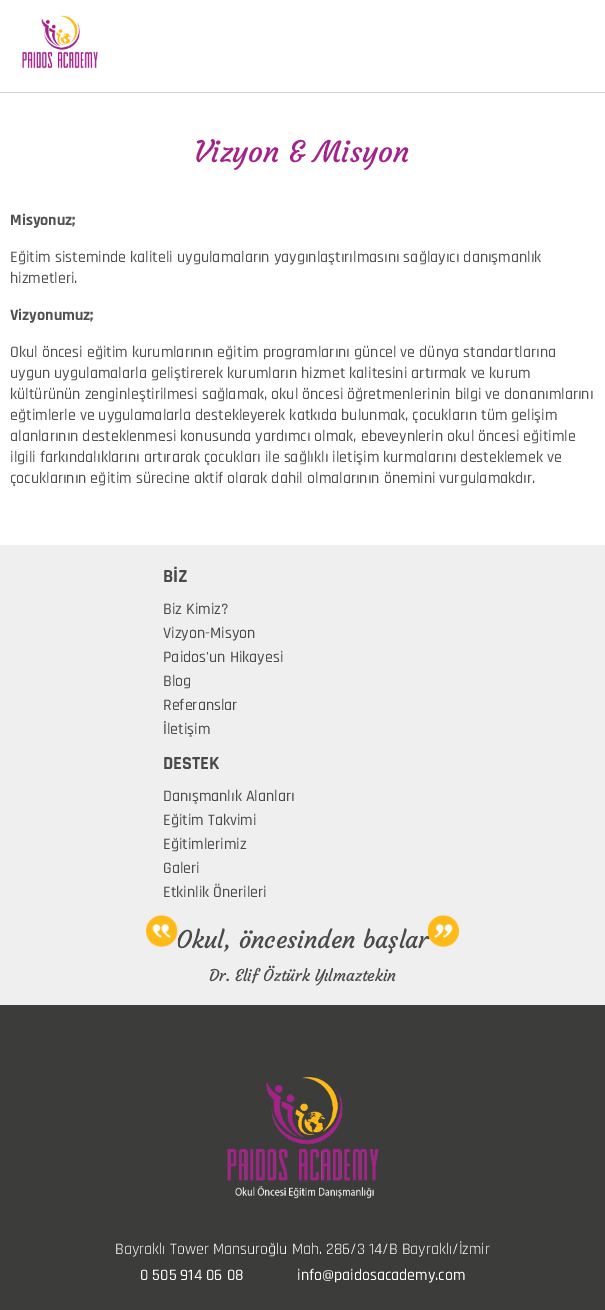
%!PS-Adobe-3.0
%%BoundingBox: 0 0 605 1310
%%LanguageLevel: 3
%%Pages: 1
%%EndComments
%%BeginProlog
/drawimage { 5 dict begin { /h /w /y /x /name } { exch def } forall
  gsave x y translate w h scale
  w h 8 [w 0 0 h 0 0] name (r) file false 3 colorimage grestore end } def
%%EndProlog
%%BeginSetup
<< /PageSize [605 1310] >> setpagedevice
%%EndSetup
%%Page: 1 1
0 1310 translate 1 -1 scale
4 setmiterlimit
1 setgray
0 0 605 1310 rectfill
(images/1.raw) 22 15 76 54 drawimage
0.82 setgray
0 92 605 1 rectfill
0.937 setgray
0 545 605 460 rectfill
0.235 0.235 0.231 setrgbcolor
0 1005 605 305 rectfill
(images/4.raw) 227 1077 152 122 drawimage
/Courgette-Regular [29.25 0 0 -29.25 0 0] selectfont
0.639 0.137 0.537 setrgbcolor
194 162 moveto (Vizyon & Misyon) show
/Rajdhani-Bold [16 0 0 -16 0 0] selectfont
0.314 setgray
10 225 moveto (Misyonuz;) show
/Rajdhani-Medium [16 0 0 -16 0 0] selectfont
10 262 moveto (Eğitim sisteminde kaliteli uygulamaların yaygınlaştırılmasını sağlayıcı danışmanlık) show
10 283 moveto (hizmetleri.) show
/Rajdhani-Bold [16 0 0 -16 0 0] selectfont
10 320 moveto (Vizyonumuz;) show
/Rajdhani-Medium [16 0 0 -16 0 0] selectfont
10 357 moveto (Okul öncesi eğitim kurumlarının eğitim programlarını güncel ve dünya standartlarına) show
10 378 moveto (uygun uygulamalarla geliştirerek kurumların hizmet kalitesini artırmak ve kurum) show
10 399 moveto (kültürünün zenginleştirilmesi sağlamak, okul öncesi öğretmenlerinin bilgi ve donanımlarını) show
10 420 moveto (eğtimlerle ve uygulamalarla destekleyerek katkıda bulunmak, çocukların tüm gelişim) show
10 441 moveto (alanlarının desteklenmesi konusunda yardımcı olmak, ebeveynlerin okul öncesi eğitimle) show
10 462 moveto (ilgili farkındalıklarını artırarak çocukları ile sağlıklı iletişim kurmalarını desteklemek ve) show
10 483 moveto (çocuklarının eğitim sürecine aktif olarak dahil olmalarının önemini vurgulamakdır.) show
/Rajdhani-Bold [18.5 0 0 -18.5 0 0] selectfont
0.29 0.29 0.286 setrgbcolor
163 582 moveto (BİZ) show
/Rajdhani-Medium [16 0 0 -16 0 0] selectfont
163 614 moveto (Biz Kimiz?) show
163 638 moveto (Vizyon-Misyon) show
163 662 moveto (Paidos'un Hikayesi) show
163 686 moveto (Blog) show
163 710 moveto (Referanslar) show
163 734 moveto (İletişim) show
/Rajdhani-Bold [18.5 0 0 -18.5 0 0] selectfont
163 769 moveto (DESTEK) show
/Rajdhani-Medium [16 0 0 -16 0 0] selectfont
163 801 moveto (Danışmanlık Alanları) show
163 825 moveto (Eğitim Takvimi) show
163 849 moveto (Eğitimlerimiz) show
163 873 moveto (Galeri) show
163 897 moveto (Etkinlik Önerileri) show
/Courgette-Regular [24 0 0 -24 0 0] selectfont
176 948 moveto (Okul, öncesinden başlar) show
(images/2.raw) 146 915 32 32 drawimage
(images/3.raw) 427 915 32 32 drawimage
/Courgette-Regular [16 0 0 -16 0 0] selectfont
209 981 moveto (Dr. Elif Öztürk Yılmaztekin) show
/Rajdhani-Regular [16 0 0 -16 0 0] selectfont
1 setgray
115 1254 moveto (Bayraklı Tower Mansuroğlu Mah. 286/3 14/B Bayraklı/İzmir) show
/Rajdhani-Medium [16 0 0 -16 0 0] selectfont
140 1280 moveto (0 505 914 06 08) show
297 1280 moveto (info@paidosacademy.com) show
showpage
%%EOF
